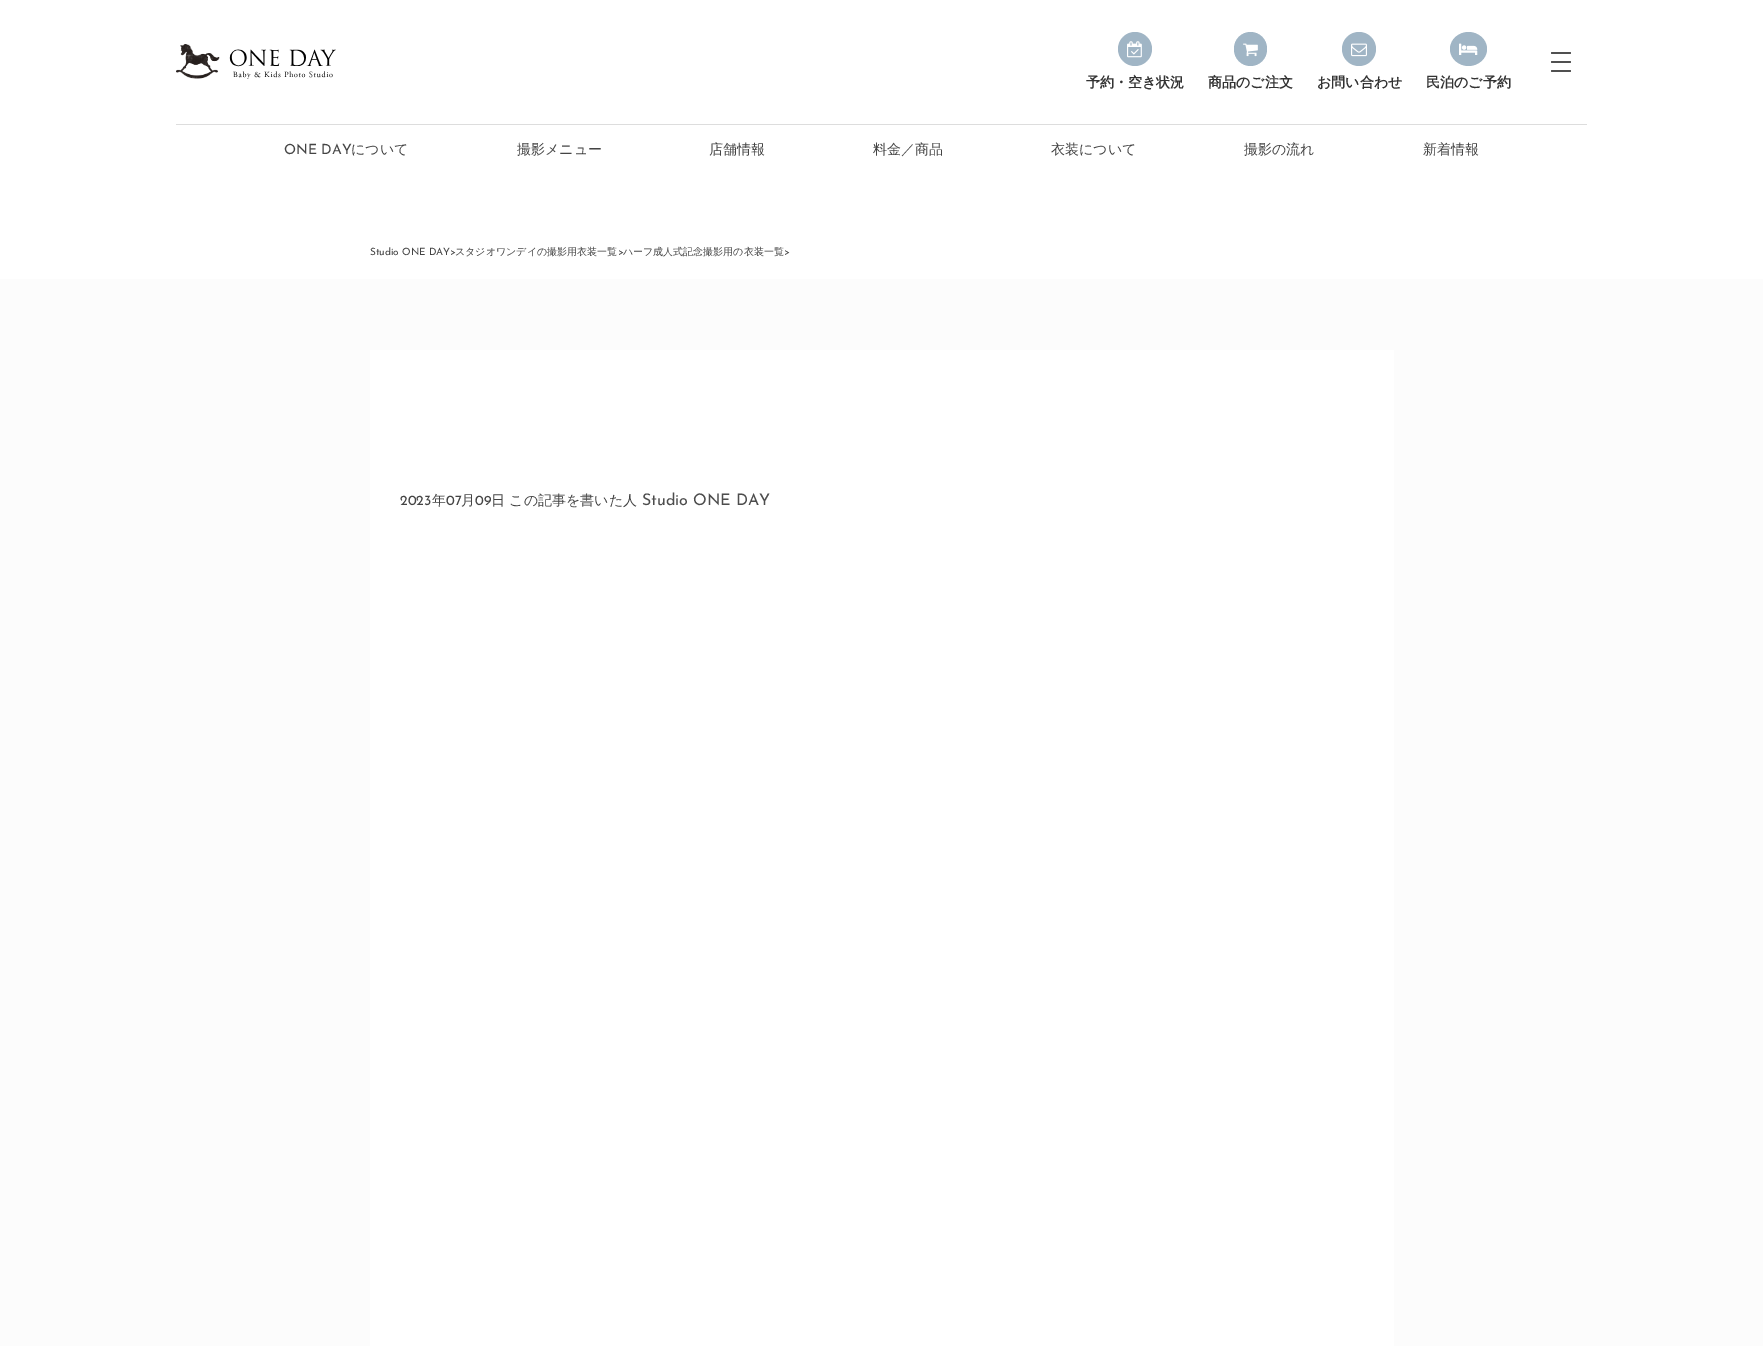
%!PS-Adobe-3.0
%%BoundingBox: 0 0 1763 1346
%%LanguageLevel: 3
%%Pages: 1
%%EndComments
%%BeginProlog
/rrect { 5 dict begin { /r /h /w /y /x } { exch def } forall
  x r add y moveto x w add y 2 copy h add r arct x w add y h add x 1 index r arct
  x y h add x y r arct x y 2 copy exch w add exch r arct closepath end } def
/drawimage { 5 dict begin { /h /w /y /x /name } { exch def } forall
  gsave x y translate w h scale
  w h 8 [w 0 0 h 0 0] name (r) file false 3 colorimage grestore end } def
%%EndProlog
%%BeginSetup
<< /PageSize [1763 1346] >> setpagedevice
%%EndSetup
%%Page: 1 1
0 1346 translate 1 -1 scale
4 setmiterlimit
1 setgray
0 0 1763 1346 rectfill
(images/1.raw) 176 44 160 35 drawimage
0.314 setgray
1551 52 20 2 1 rrect fill
1551 61 20 2 1 rrect fill
1551 70 20 2 1 rrect fill
0.627 0.71 0.773 setrgbcolor
newpath 1135 49 17 0 360 arc closepath fill
(images/2.raw) 1127 41 15 17 drawimage
1234 32 33 34 16.5 rrect fill
(images/3.raw) 1243 43 15 14 drawimage
newpath 1359 49 17 0 360 arc closepath fill
(images/4.raw) 1351 43 16 14 drawimage
newpath 1468.5 32 moveto 1478.5 32 1487 39.5 1487 49 curveto 1487 58.5 1478.5 66 1468.5 66 curveto 1458.5 66 1450 58.5 1450 49 curveto 1450 39.5 1458.5 32 1468.5 32 curveto closepath fill
(images/5.raw) 1459 43 19 12 drawimage
0.867 setgray
176 124 1411 1 rectfill
0.988 setgray
0 279 1763 1067 rectfill
1 setgray
370 350 1024 996 rectfill
/WenQuanYiZenHei-Bold [14 0 0 -14 0 0] selectfont
0.2 setgray
1086 87 moveto (予約・空き状況) show
1208 87 moveto (商品のご注文) show
1317 87 moveto (お問い合わせ) show
1426 87 moveto (民泊のご予約) show
/JosefinSans-Regular [14 0 0 -14 0 0] selectfont
0.267 setgray
284 154 moveto (ONE DAY) show
/WenQuanYiZenHei-Medium [14 0 0 -14 0 0] selectfont
351 154 moveto (について) show
517 154 moveto (撮影メニュー) show
709 154 moveto (店舗情報) show
873 154 moveto (料金／商品) show
1051 154 moveto (衣装について) show
1244 154 moveto (撮影の流れ) show
1423 154 moveto (新着情報) show
/JosefinSans-Regular [10 0 0 -10 0 0] selectfont
370 255 moveto (Studio ONE DAY) show
450 255 moveto (>) show
/WenQuanYiZenHei-Medium [10 0 0 -10 0 0] selectfont
455 255 moveto (スタジオワンデイの撮影用衣装一覧) show
/JosefinSans-Regular [10 0 0 -10 0 0] selectfont
618 255 moveto (>) show
/WenQuanYiZenHei-Medium [10 0 0 -10 0 0] selectfont
623 255 moveto (ハーフ成人式記念撮影用の衣装一覧) show
/JosefinSans-Regular [10 0 0 -10 0 0] selectfont
784 255 moveto (>) show
/JosefinSans-Regular [14 0 0 -14 0 0] selectfont
400 505 moveto (2023) show
/WenQuanYiZenHei-Medium [14 0 0 -14 0 0] selectfont
432 505 moveto (年) show
/JosefinSans-Regular [14 0 0 -14 0 0] selectfont
446 505 moveto (07) show
/WenQuanYiZenHei-Medium [14 0 0 -14 0 0] selectfont
461 505 moveto (月) show
/JosefinSans-Regular [14 0 0 -14 0 0] selectfont
475 505 moveto (09) show
/WenQuanYiZenHei-Medium [14 0 0 -14 0 0] selectfont
491 505 moveto (日 この記事を書いた人) show
/JosefinSans-Regular [16 0 0 -16 0 0] selectfont
0.302 setgray
642 505 moveto (Studio ONE DAY) show
showpage
%%EOF
